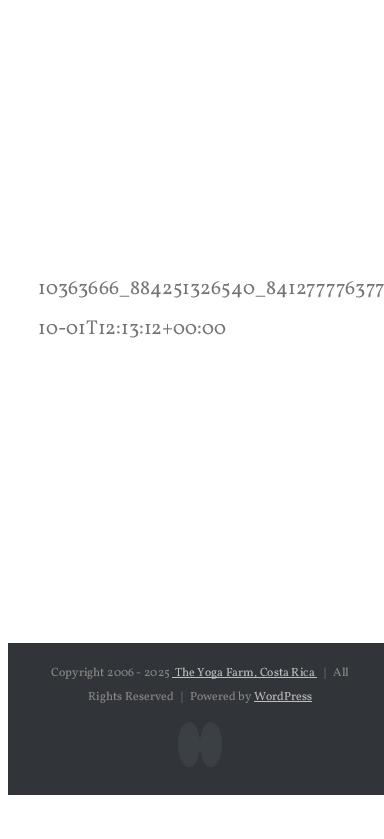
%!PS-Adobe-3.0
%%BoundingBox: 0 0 384 839
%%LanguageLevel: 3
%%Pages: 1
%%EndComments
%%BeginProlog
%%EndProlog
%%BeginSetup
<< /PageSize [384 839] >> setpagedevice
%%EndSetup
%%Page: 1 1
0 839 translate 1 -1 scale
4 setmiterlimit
1 setgray
0 0 384 839 rectfill
0.192 0.208 0.224 setrgbcolor
8 643 376 152 rectfill
0.749 setgray
172 677 145 1 rectfill
254 701 58 1 rectfill
0.231 0.251 0.271 setrgbcolor
newpath 189 722 moveto 195 722 200 732 200 744.5 curveto 200 757 195 767 189 767 curveto 183 767 178 757 178 744.5 curveto 178 732 183 722 189 722 curveto closepath fill
newpath 211 722 moveto 217 722 222 732 222 744.5 curveto 222 757 217 767 211 767 curveto 205 767 200 757 200 744.5 curveto 200 732 205 722 211 722 curveto closepath fill
/Vollkorn-Regular [20 0 0 -20 0 0] selectfont
0.455 setgray
38 294 moveto (10363666_884251326540_841277776377) show
38 334 moveto (10-01T12:13:12+00:00) show
/Vollkorn-Regular [12 0 0 -12 0 0] selectfont
0.549 0.537 0.537 setrgbcolor
51 676 moveto (Copyright 2006 - 2025) show
0.749 setgray
175 676 moveto (The Yoga Farm, Costa Rica) show
0.549 0.537 0.537 setrgbcolor
324 676 moveto (|   All) show
88 700 moveto (Rights Reserved   |   Powered by) show
0.749 setgray
254 700 moveto (WordPress) show
showpage
%%EOF
